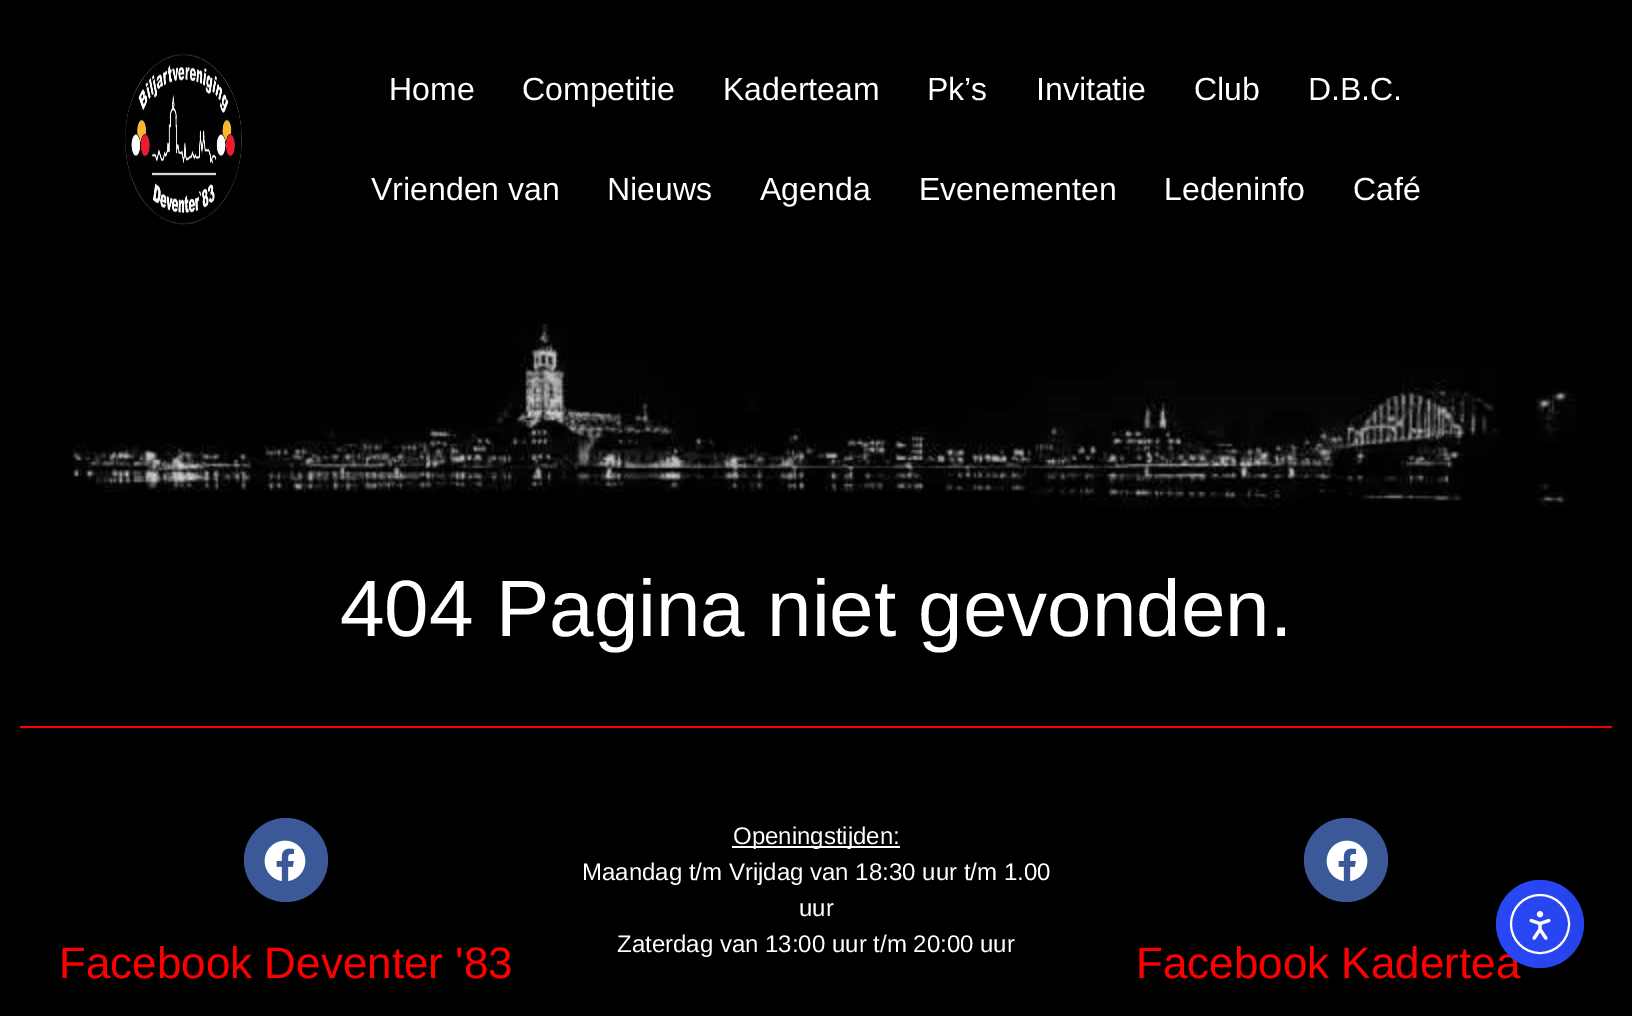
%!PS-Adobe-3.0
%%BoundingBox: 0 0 1632 1016
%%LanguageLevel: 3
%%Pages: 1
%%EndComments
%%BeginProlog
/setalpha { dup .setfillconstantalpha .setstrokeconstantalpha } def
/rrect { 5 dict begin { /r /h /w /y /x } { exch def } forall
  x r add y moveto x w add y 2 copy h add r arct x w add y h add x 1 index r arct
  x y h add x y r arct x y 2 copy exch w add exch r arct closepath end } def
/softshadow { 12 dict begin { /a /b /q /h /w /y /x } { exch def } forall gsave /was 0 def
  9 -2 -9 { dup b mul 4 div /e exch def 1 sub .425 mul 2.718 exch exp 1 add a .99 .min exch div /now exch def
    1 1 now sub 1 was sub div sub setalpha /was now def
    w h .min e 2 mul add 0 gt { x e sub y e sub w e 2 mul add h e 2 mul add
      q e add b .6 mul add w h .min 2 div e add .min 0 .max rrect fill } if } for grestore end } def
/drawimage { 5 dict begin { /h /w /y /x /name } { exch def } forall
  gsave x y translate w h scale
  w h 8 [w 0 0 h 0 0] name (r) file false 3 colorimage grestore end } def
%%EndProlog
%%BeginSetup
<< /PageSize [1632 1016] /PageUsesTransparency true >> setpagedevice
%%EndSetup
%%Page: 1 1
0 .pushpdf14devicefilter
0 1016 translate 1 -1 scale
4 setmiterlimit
0 setgray
0 0 1632 1016 rectfill
(images/1.raw) 125 54 117 171 drawimage
(images/2.raw) 72 323 1504 185 drawimage
1 0 0 setrgbcolor
20 726 1592 2 rectfill
1 setgray
732 846 168 2 rectfill
0.231 0.349 0.596 setrgbcolor
newpath 286 860 42 0 360 arc closepath fill
(images/3.raw) 264 840 42 41 drawimage
newpath 1346 860 42 0 360 arc closepath fill
(images/3.raw) 1326 840 42 41 drawimage
/LiberationSans-Regular [32 0 0 -32 0 0] selectfont
1 setgray
389 100 moveto (Home) show
522 100 moveto (Competitie) show
723 100 moveto (Kaderteam) show
927 100 moveto (Pk’s) show
1036 100 moveto (Invitatie) show
1194 100 moveto (Club) show
1308 100 moveto (D.B.C.) show
371 200 moveto (Vrienden van) show
607 200 moveto (Nieuws) show
760 200 moveto (Agenda) show
919 200 moveto (Evenementen) show
1164 200 moveto (Ledeninfo) show
1353 200 moveto (Café) show
/LiberationSans-Regular [80 0 0 -80 0 0] selectfont
340 636 moveto (404 Pagina niet gevonden.) show
/LiberationSans-Regular [24 0 0 -24 0 0] selectfont
733 844 moveto (Openingstijden:) show
582 880 moveto (Maandag t/m Vrijdag van 18:30 uur t/m 1.00) show
799 916 moveto (uur) show
617 952 moveto (Zaterdag van 13:00 uur t/m 20:00 uur) show
/LiberationSans-Regular [44 0 0 -44 0 0] selectfont
1 0 0 setrgbcolor
59 978 moveto (Facebook Deventer '83) show
1136 978 moveto (Facebook Kadertea) show
0.157 0.278 0.953 setrgbcolor
newpath 1540 924 44 0 360 arc closepath fill
1 setgray
2 setlinewidth
newpath 1540 924 29 0 360 arc closepath stroke
(images/4.raw) 1529 911 22 29 drawimage
0 setgray
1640 20 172 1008 0 60 0.2 softshadow
.poppdf14devicefilter showpage
%%EOF
